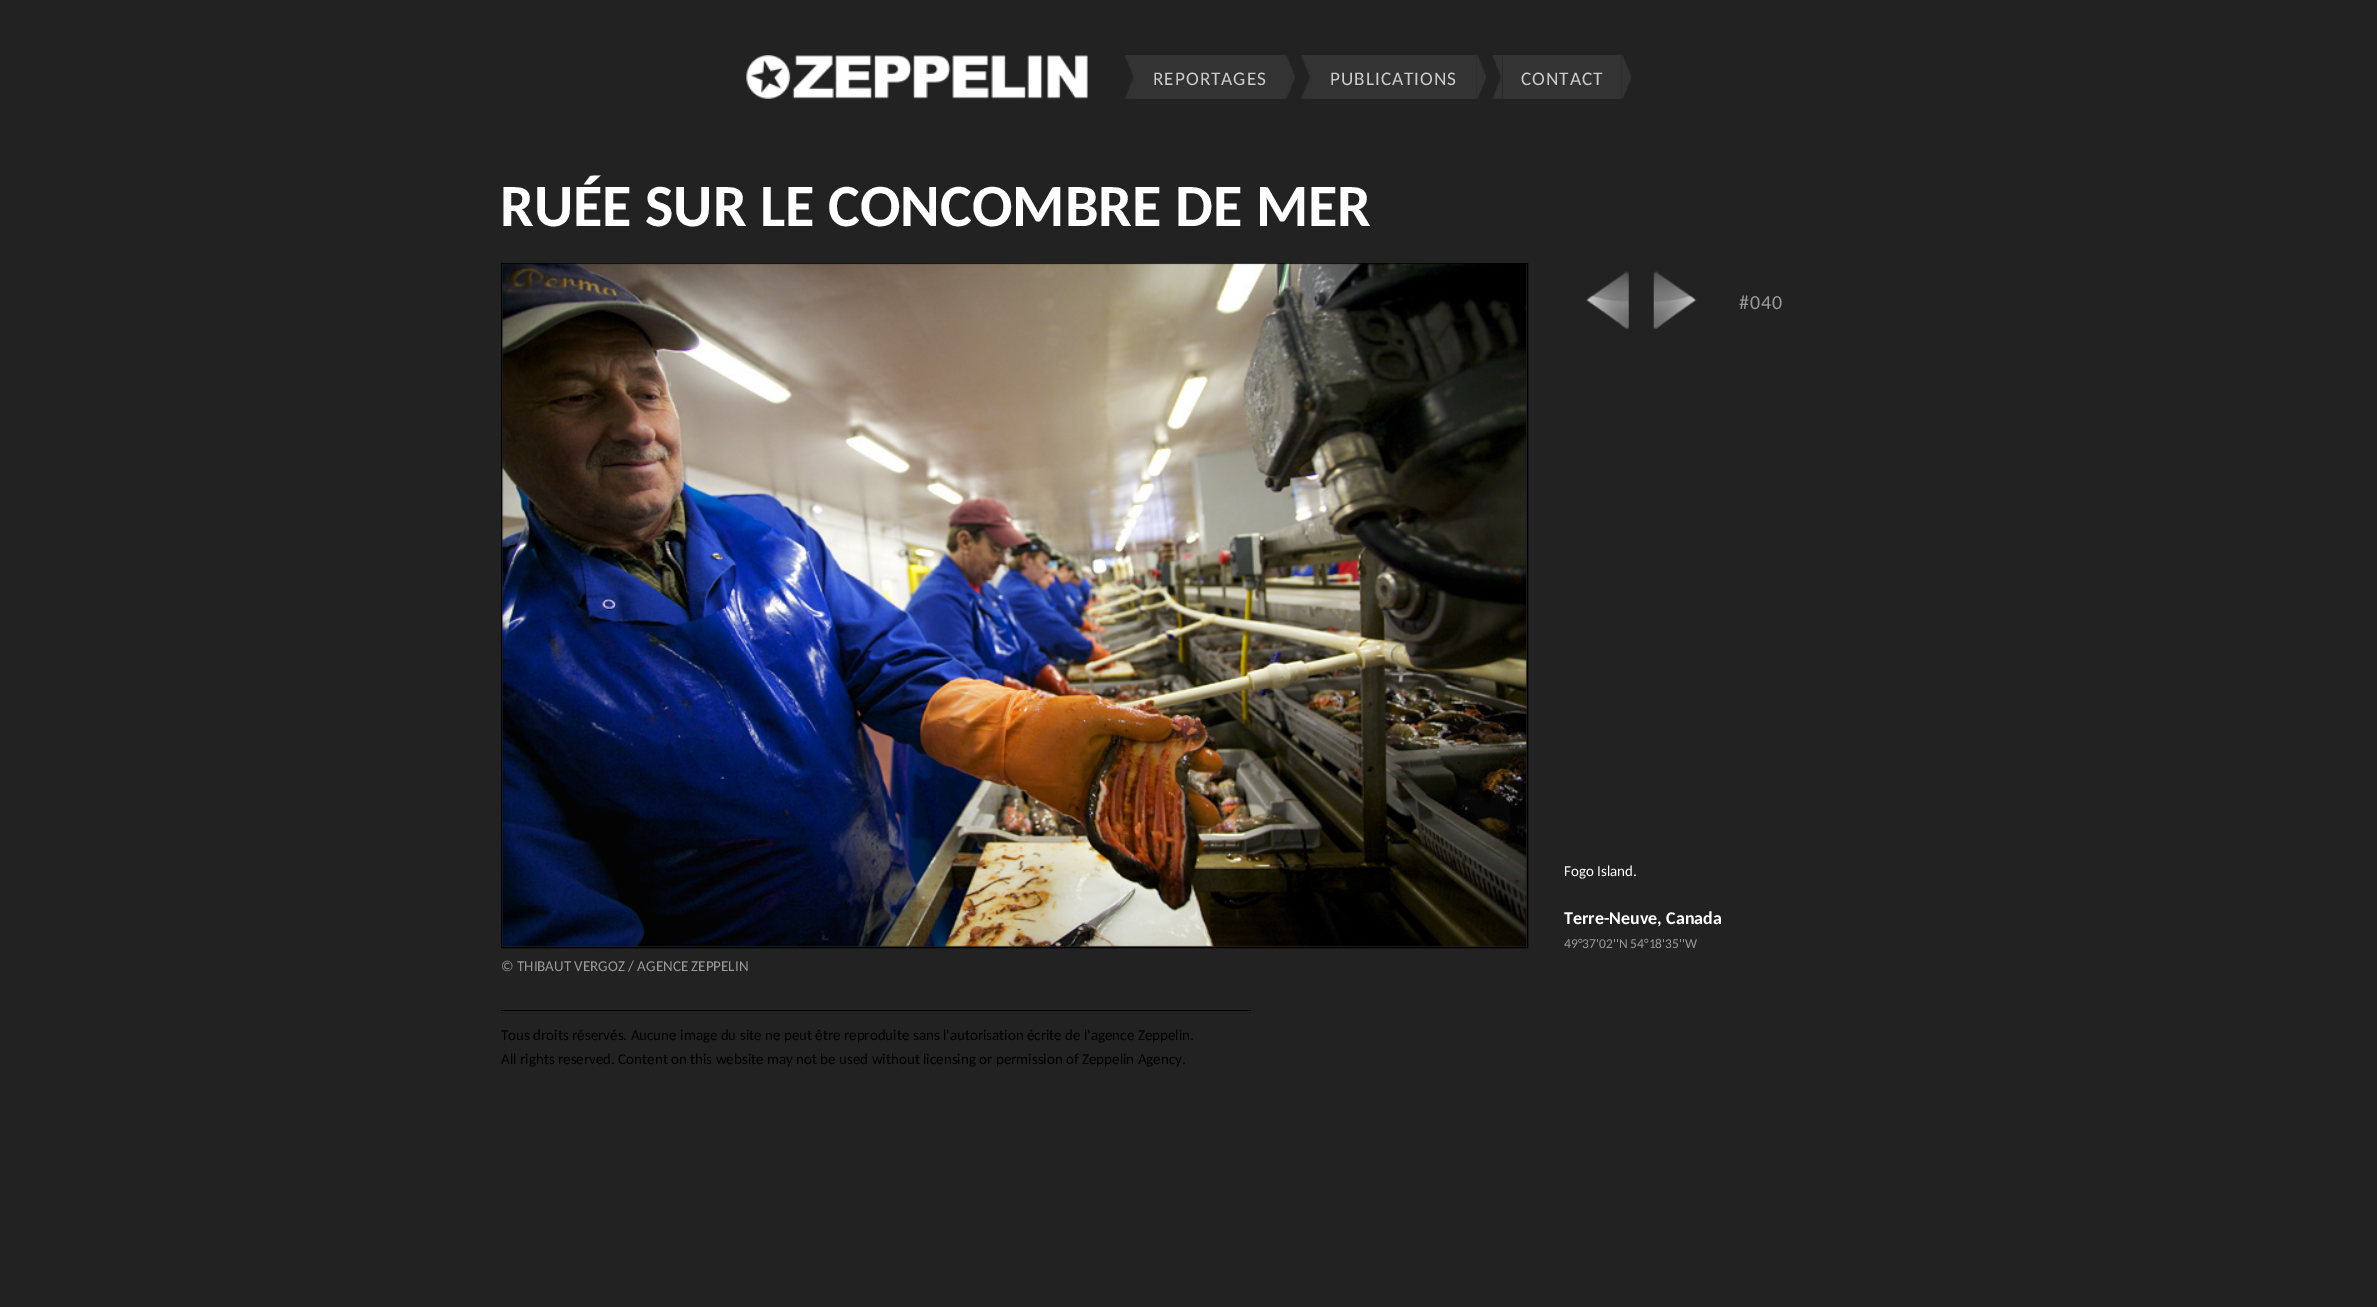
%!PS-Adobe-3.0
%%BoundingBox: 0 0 2377 1307
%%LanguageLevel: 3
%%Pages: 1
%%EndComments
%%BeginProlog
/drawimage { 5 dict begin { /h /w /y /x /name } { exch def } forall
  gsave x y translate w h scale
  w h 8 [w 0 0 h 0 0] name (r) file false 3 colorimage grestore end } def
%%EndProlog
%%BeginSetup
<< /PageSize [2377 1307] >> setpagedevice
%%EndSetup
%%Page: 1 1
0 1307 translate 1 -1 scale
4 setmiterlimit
0.133 setgray
0 0 2377 1307 rectfill
(images/1.raw) 746 55 342 44 drawimage
(images/2.raw) 1125 55 10 44 drawimage
0.2 setgray
1135 55 150 44 rectfill
(images/3.raw) 1285 55 10 44 drawimage
(images/4.raw) 1301 55 10 44 drawimage
1311 55 165 44 rectfill
(images/5.raw) 1476 55 10 44 drawimage
(images/6.raw) 1492 55 11 44 drawimage
1503 55 118 44 rectfill
(images/5.raw) 1621 55 10 44 drawimage
0 setgray
501.5 263.5 1026 684 rectstroke
(images/7.raw) 502 263 1025 684 drawimage
(images/8.raw) 1586 271 43 58 drawimage
(images/9.raw) 1653 271 44 58 drawimage
501 1010 750 1 rectfill
/Carlito-Regular [19.25 0 0 -19.25 0 0] selectfont
0.8 setgray
1153 85 moveto 1 0 (REPORTAGES) ashow
1330 85 moveto 1 0 (PUBLICATIONS) ashow
1521 85 moveto 1 0 (CONTACT) ashow
/Carlito-Bold [60 0 0 -60 0 0] selectfont
1 setgray
500 226 moveto (RUÉE SUR LE CONCOMBRE DE MER) show
/Carlito-Regular [20 0 0 -20 0 0] selectfont
0.6 setgray
1739 309 moveto 1 0 (#040) ashow
/Carlito-Regular [15 0 0 -15 0 0] selectfont
1 setgray
1564 876 moveto (Fogo Island.) show
/Carlito-Bold [18 0 0 -18 0 0] selectfont
1564 924 moveto (Terre-Neuve, Canada) show
/Carlito-Regular [13.5 0 0 -13.5 0 0] selectfont
0.6 setgray
1564 948 moveto (49°37'02''N 54°18'35''W) show
/Carlito-Regular [15 0 0 -15 0 0] selectfont
501 971 moveto (© THIBAUT VERGOZ / AGENCE ZEPPELIN) show
0 setgray
501 1040 moveto (Tous droits réservés. Aucune image du site ne peut être reproduite sans l'autorisation écrite de l'agence Zeppelin.) show
501 1064 moveto (All rights reserved. Content on this website may not be used without licensing or permission of Zeppelin Agency.) show
showpage
%%EOF
